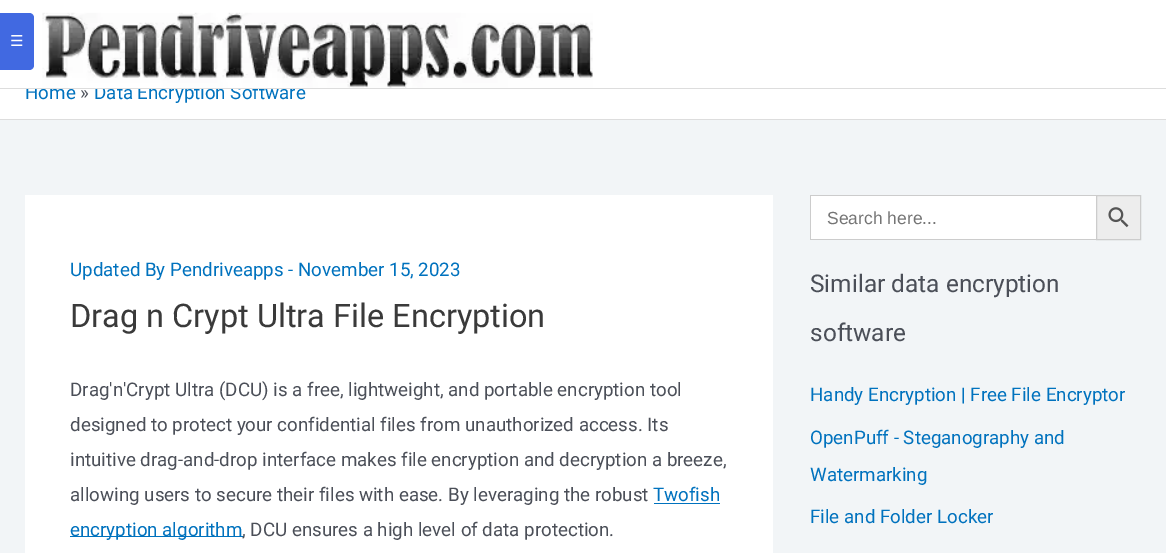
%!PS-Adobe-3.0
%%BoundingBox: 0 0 1166 553
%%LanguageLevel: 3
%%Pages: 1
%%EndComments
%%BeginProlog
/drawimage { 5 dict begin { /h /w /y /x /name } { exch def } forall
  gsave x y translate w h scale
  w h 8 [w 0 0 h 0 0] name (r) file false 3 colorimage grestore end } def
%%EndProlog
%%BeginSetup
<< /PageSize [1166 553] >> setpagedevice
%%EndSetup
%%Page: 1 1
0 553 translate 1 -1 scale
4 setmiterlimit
0.949 0.961 0.969 setrgbcolor
0 0 1166 553 rectfill
1 setgray
25 195 748 358 rectfill
0 0.447 0.745 setrgbcolor
654 503 66 1 rectfill
70 536 173 1 rectfill
1 setgray
811 196 285 43 rectfill
0.8 setgray
810 195 286 1 rectfill
810 239 286 1 rectfill
810 195 1 45 rectfill
0.929 setgray
newpath 1096.5 195.5 moveto 1140.5 195.5 lineto 1140.5 239.5 lineto 1096.5 239.5 lineto closepath gsave fill grestore
0.8 setgray
stroke
(images/2.raw) 1108 207 21 21 drawimage
1 setgray
0 89 1166 30 rectfill
0.867 setgray
0 119 1166 1 rectfill
/Roboto-Regular [18.75 0 0 -18.75 0 0] selectfont
0.294 0.31 0.345 setrgbcolor
70 396 moveto (Drag'n'Crypt Ultra \(DCU\) is a free, lightweight, and portable encryption tool) show
70 431 moveto (designed to protect your confidential files from unauthorized access. Its) show
70 466 moveto (intuitive drag-and-drop interface makes file encryption and decryption a breeze,) show
70 501 moveto (allowing users to secure their files with ease. By leveraging the robust) show
0 0.447 0.745 setrgbcolor
653 501 moveto (Twofish) show
70 536 moveto (encryption algorithm) show
0.294 0.31 0.345 setrgbcolor
242 536 moveto (, DCU ensures a high level of data protection.) show
0 0.447 0.745 setrgbcolor
70 276 moveto (Updated By Pendriveapps - November 15, 2023) show
/Roboto-Regular [32.5 0 0 -32.5 0 0] selectfont
0.227 setgray
70 327 moveto (Drag n Crypt Ultra File Encryption) show
/LiberationSans-Regular [17.5 0 0 -17.5 0 0] selectfont
0.459 setgray
827 224 moveto (Search here...) show
/Roboto-Regular [24.4 0 0 -24.4 0 0] selectfont
0.294 0.31 0.345 setrgbcolor
810 292 moveto (Similar data encryption) show
810 341 moveto (software) show
/Roboto-Regular [18.75 0 0 -18.75 0 0] selectfont
0 0.447 0.745 setrgbcolor
810 401 moveto (Handy Encryption | Free File Encryptor) show
810 444 moveto (OpenPuff - Steganography and) show
810 481 moveto (Watermarking) show
810 523 moveto (File and Folder Locker) show
25 99 moveto (Home) show
0.294 0.31 0.345 setrgbcolor
80 99 moveto (») show
0 0.447 0.745 setrgbcolor
94 99 moveto (Data Encryption Software) show
1 setgray
0 0 1166 88 rectfill
0.255 0.412 0.882 setrgbcolor
newpath 0 13 moveto 29 13 lineto 32 13 34 15 34 18 curveto 34 65 lineto 34 68 32 70 29 70 curveto 0 70 lineto closepath fill
/DejaVuSans-Regular [15 0 0 -15 0 0] selectfont
1 setgray
10 46 moveto (☰) show
(images/1.raw) 42 12 551 76 drawimage
0.867 setgray
0 88 1166 1 rectfill
showpage
%%EOF
